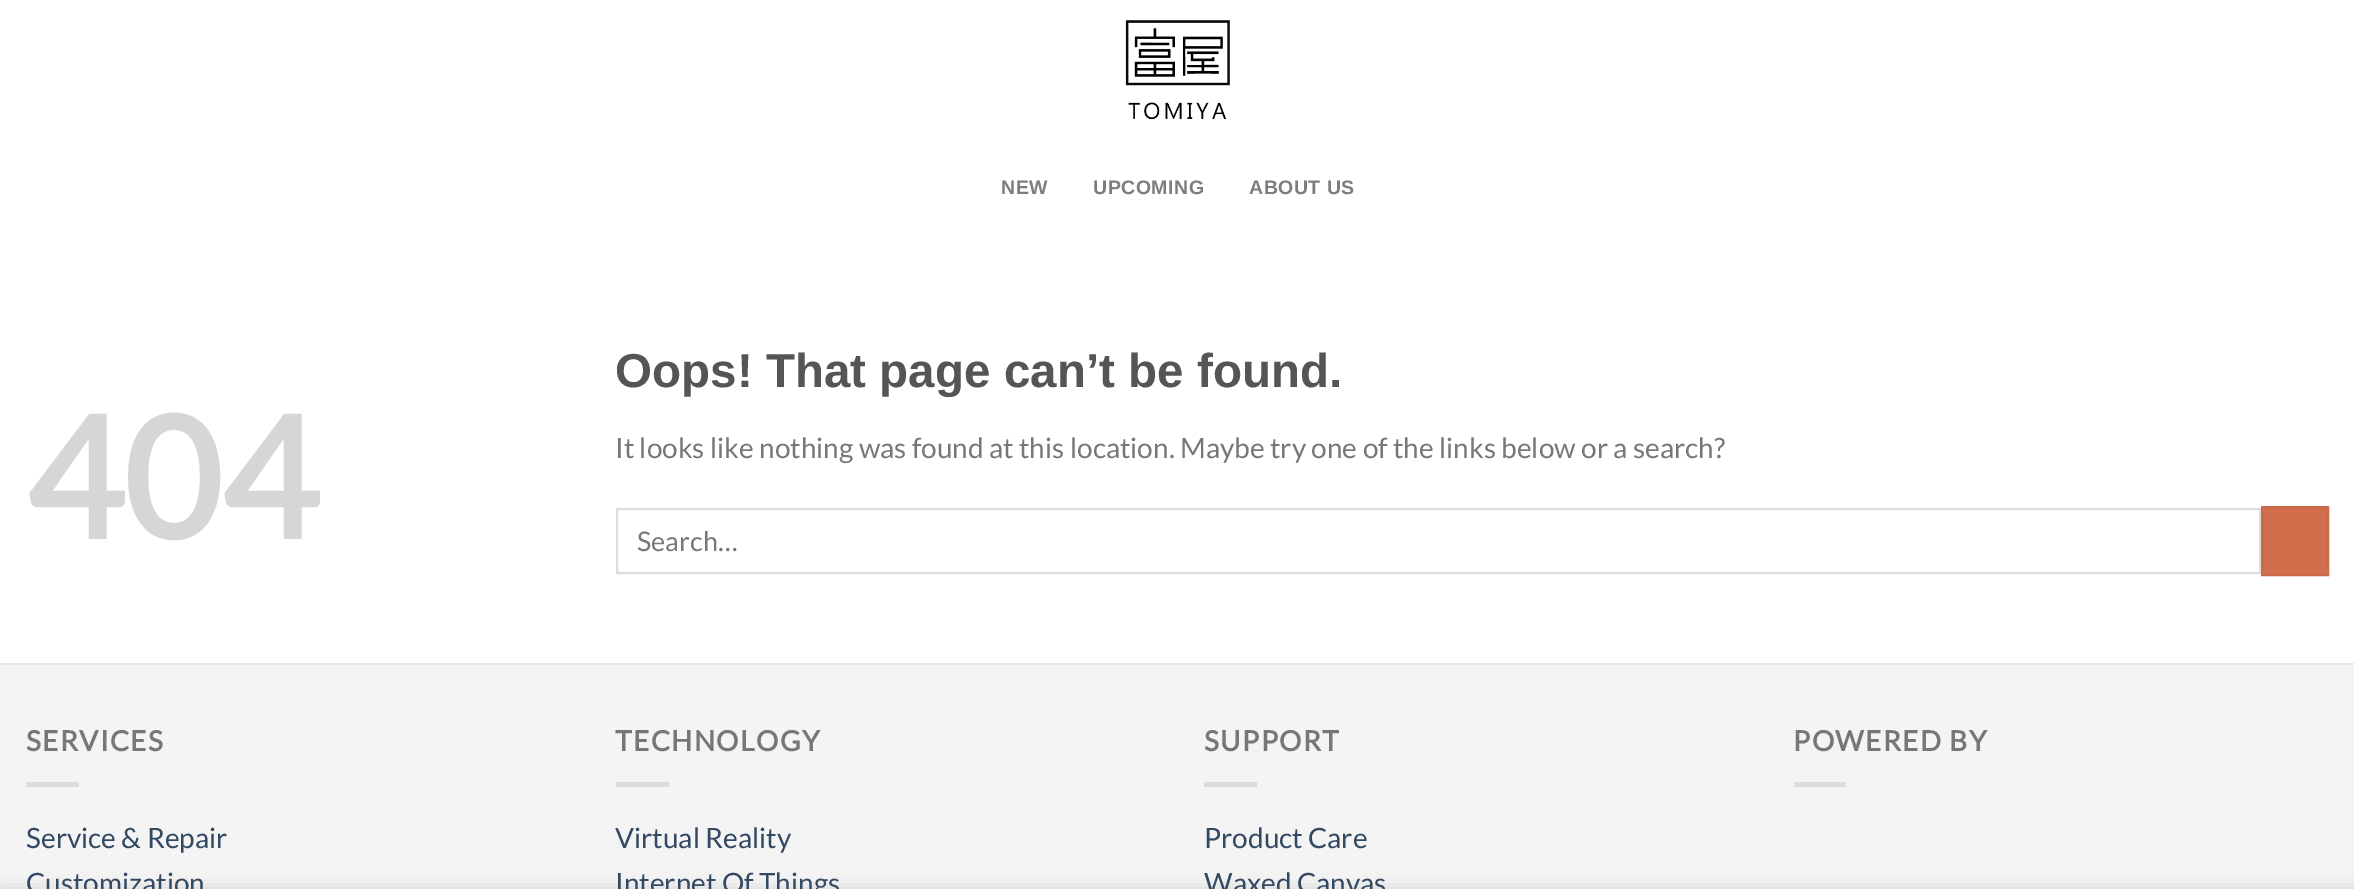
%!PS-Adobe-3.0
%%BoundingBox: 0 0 2354 889
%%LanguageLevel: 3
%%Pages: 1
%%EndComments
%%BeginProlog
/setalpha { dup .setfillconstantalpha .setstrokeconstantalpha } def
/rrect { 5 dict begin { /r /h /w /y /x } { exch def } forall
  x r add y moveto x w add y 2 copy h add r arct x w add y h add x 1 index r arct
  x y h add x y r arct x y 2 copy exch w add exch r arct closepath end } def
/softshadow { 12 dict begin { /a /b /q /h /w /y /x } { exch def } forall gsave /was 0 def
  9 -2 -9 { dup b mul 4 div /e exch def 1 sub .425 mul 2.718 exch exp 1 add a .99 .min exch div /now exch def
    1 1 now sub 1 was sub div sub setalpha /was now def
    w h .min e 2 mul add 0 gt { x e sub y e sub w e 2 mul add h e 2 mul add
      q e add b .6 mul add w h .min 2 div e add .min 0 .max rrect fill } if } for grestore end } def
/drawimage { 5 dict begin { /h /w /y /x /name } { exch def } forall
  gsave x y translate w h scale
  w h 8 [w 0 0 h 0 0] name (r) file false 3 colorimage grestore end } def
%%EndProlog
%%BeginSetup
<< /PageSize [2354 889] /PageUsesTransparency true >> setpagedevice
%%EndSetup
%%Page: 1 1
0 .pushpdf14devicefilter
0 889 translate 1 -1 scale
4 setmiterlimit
1 setgray
0 0 2354 889 rectfill
(images/1.raw) 1125 20 105 100 drawimage
0.867 setgray
2 setlinewidth
617 509 1643 64 rectstroke
0.824 0.431 0.294 setrgbcolor
newpath 2262 507 moveto 2328 507 lineto 2328 575 lineto 2262 575 lineto closepath gsave fill grestore
0.784 0.412 0.278 setrgbcolor
stroke
0.957 setgray
0 665 2354 224 rectfill
0.91 setgray
0 663 2354 2 rectfill
0.863 setgray
26 782 53 5 rectfill
616 782 53 5 rectfill
1204 782 53 5 rectfill
1794 782 52 5 rectfill
0 setgray
0 889 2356 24 0 8 0.14 softshadow
/LiberationSans-Bold [19.5 0 0 -19.5 0 0] selectfont
0.49 setgray
1001 194 moveto 0.5 0 (NEW) ashow
1093 194 moveto 0.5 0 (UPCOMING) ashow
1249 194 moveto 0.5 0 (ABOUT US) ashow
/Lato-Bold [168 0 0 -168 0 0] selectfont
0.839 setgray
26 539 moveto (404) show
/LiberationSans-Bold [47.6 0 0 -47.6 0 0] selectfont
0.333 setgray
615 387 moveto (Oops! That page can’t be found.) show
/Lato-Regular [28 0 0 -28 0 0] selectfont
0.467 setgray
615 458 moveto (It looks like nothing was found at this location. Maybe try one of the links below or a search?) show
/Lato-Regular [27 0 0 -27 0 0] selectfont
637 551 moveto (Search…) show
/Lato-Bold [28 0 0 -28 0 0] selectfont
26 751 moveto 1.4 0 (SERVICES) ashow
/Lato-Regular [28 0 0 -28 0 0] selectfont
0.2 0.282 0.384 setrgbcolor
26 848 moveto (Service & Repair) show
26 893 moveto (Customization) show
/Lato-Bold [28 0 0 -28 0 0] selectfont
0.467 setgray
615 751 moveto 1.4 0 (TECHNOLOGY) ashow
/Lato-Regular [28 0 0 -28 0 0] selectfont
0.2 0.282 0.384 setrgbcolor
615 848 moveto (Virtual Reality) show
615 893 moveto (Internet Of Things) show
/Lato-Bold [28 0 0 -28 0 0] selectfont
0.467 setgray
1204 751 moveto 1.4 0 (SUPPORT) ashow
/Lato-Regular [28 0 0 -28 0 0] selectfont
0.2 0.282 0.384 setrgbcolor
1204 848 moveto (Product Care) show
1204 893 moveto (Waxed Canvas) show
/Lato-Bold [28 0 0 -28 0 0] selectfont
0.467 setgray
1793 751 moveto 1.4 0 (POWERED BY) ashow
.poppdf14devicefilter showpage
%%EOF
